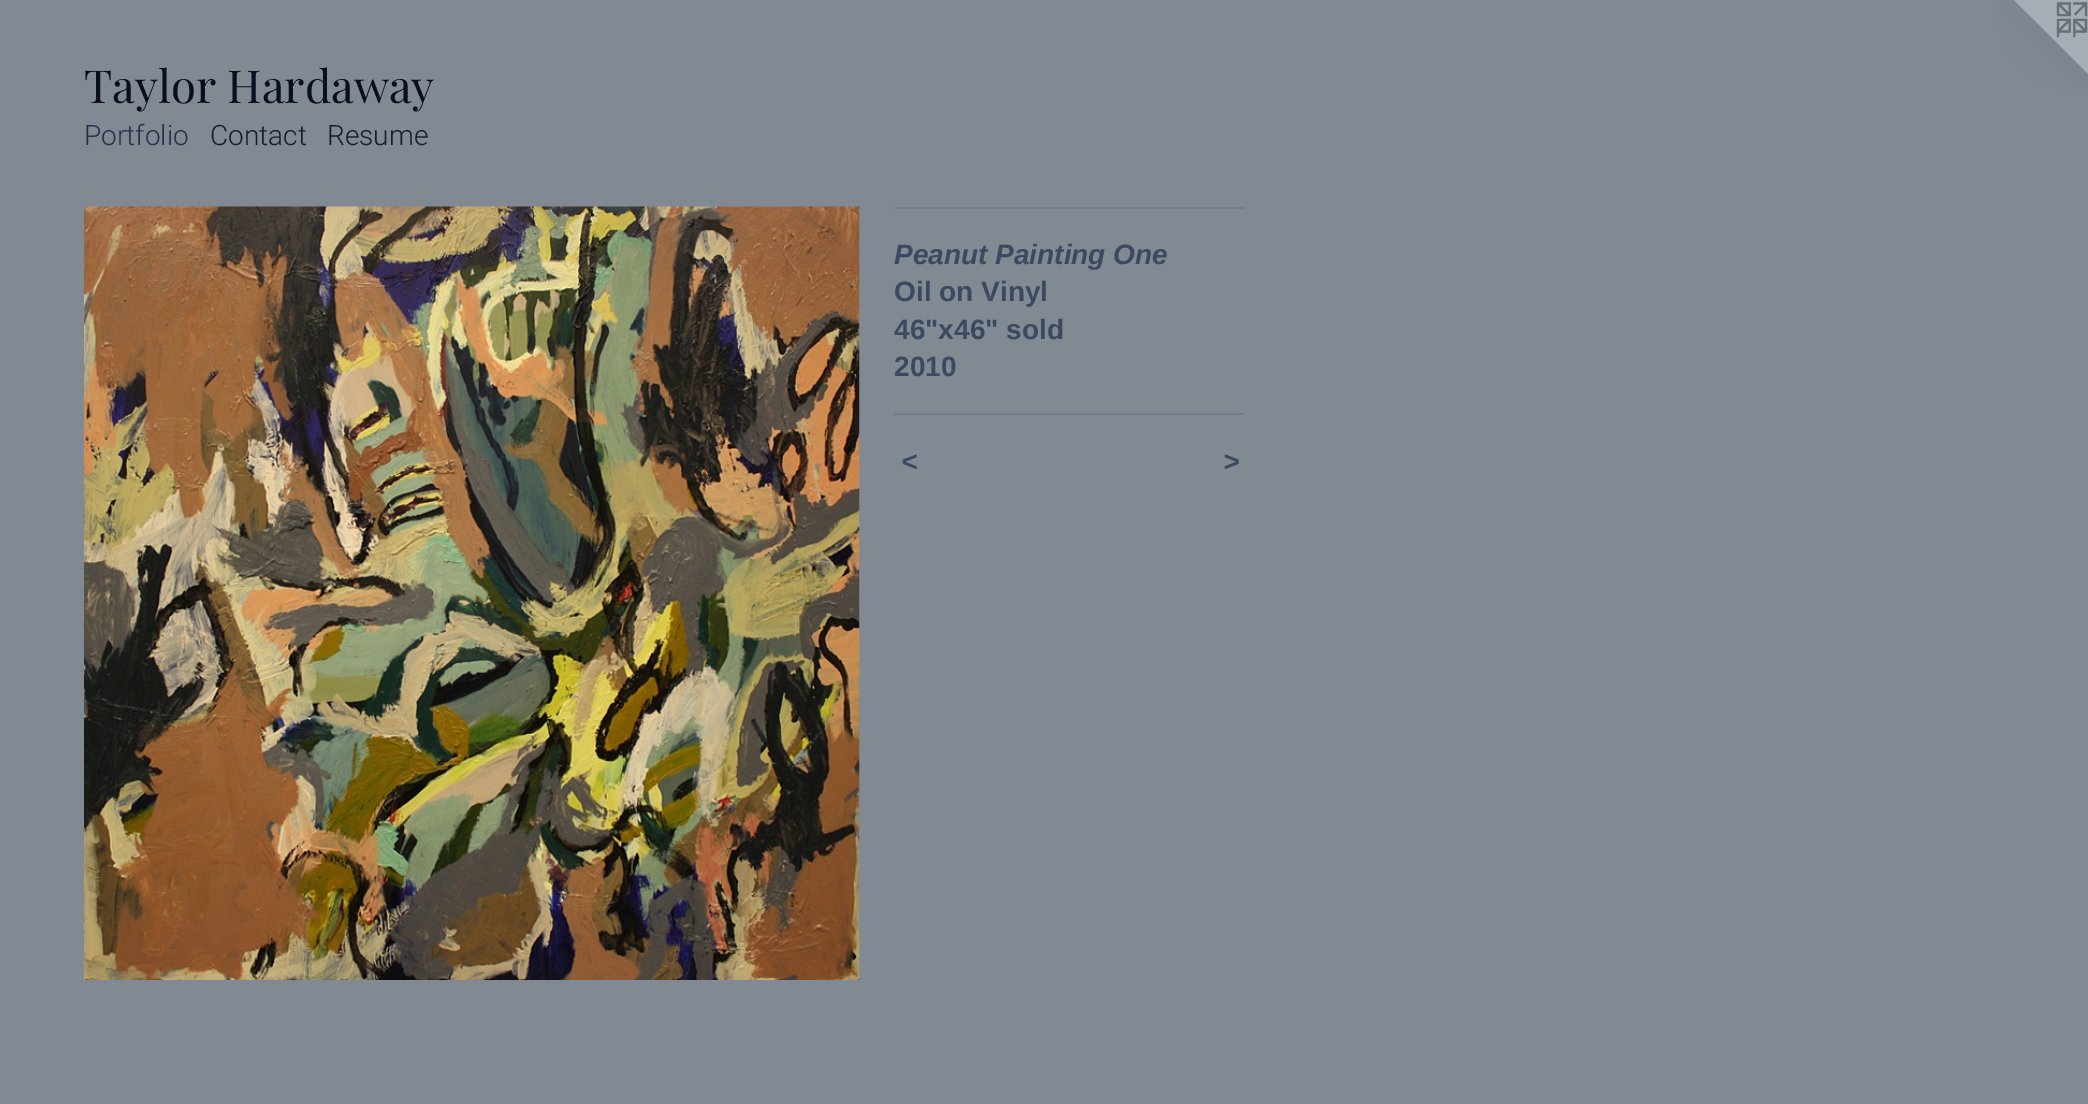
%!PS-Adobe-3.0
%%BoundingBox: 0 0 2088 1104
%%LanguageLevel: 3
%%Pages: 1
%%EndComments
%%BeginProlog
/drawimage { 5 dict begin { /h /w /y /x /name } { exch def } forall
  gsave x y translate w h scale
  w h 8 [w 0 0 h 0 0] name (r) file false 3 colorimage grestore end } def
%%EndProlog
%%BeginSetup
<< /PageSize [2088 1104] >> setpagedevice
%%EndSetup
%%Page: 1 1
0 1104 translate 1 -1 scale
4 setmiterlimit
0.506 0.541 0.576 setrgbcolor
0 0 2088 1104 rectfill
(images/1.raw) 1999 0 89 89 drawimage
(images/2.raw) 84 206 776 774 drawimage
0.451 0.49 0.537 setrgbcolor
894 207 350 2 rectfill
894 413 350 2 rectfill
/PlayfairDisplay-Regular [45.5 0 0 -45.5 0 0] selectfont
0.043 0.055 0.118 setrgbcolor
84 103 moveto (Taylor Hardaway) show
/Roboto-Light [28 0 0 -28 0 0] selectfont
0.169 0.188 0.31 setrgbcolor
84 145 moveto (Portfolio) show
0.098 0.11 0.18 setrgbcolor
210 145 moveto (Contact) show
327 145 moveto (Resume) show
/LiberationSans-BoldItalic [28 0 0 -28 0 0] selectfont
0.239 0.286 0.38 setrgbcolor
894 264 moveto (Peanut Painting One) show
/LiberationSans-Bold [28 0 0 -28 0 0] selectfont
894 301 moveto (Oil on Vinyl) show
894 339 moveto (46"x46" sold) show
894 376 moveto (2010) show
/LiberationSans-BoldItalic [28 0 0 -28 0 0] selectfont
901 471 moveto 2 0 (<) ashow
1223 471 moveto 2 0 (>) ashow
showpage
%%EOF
